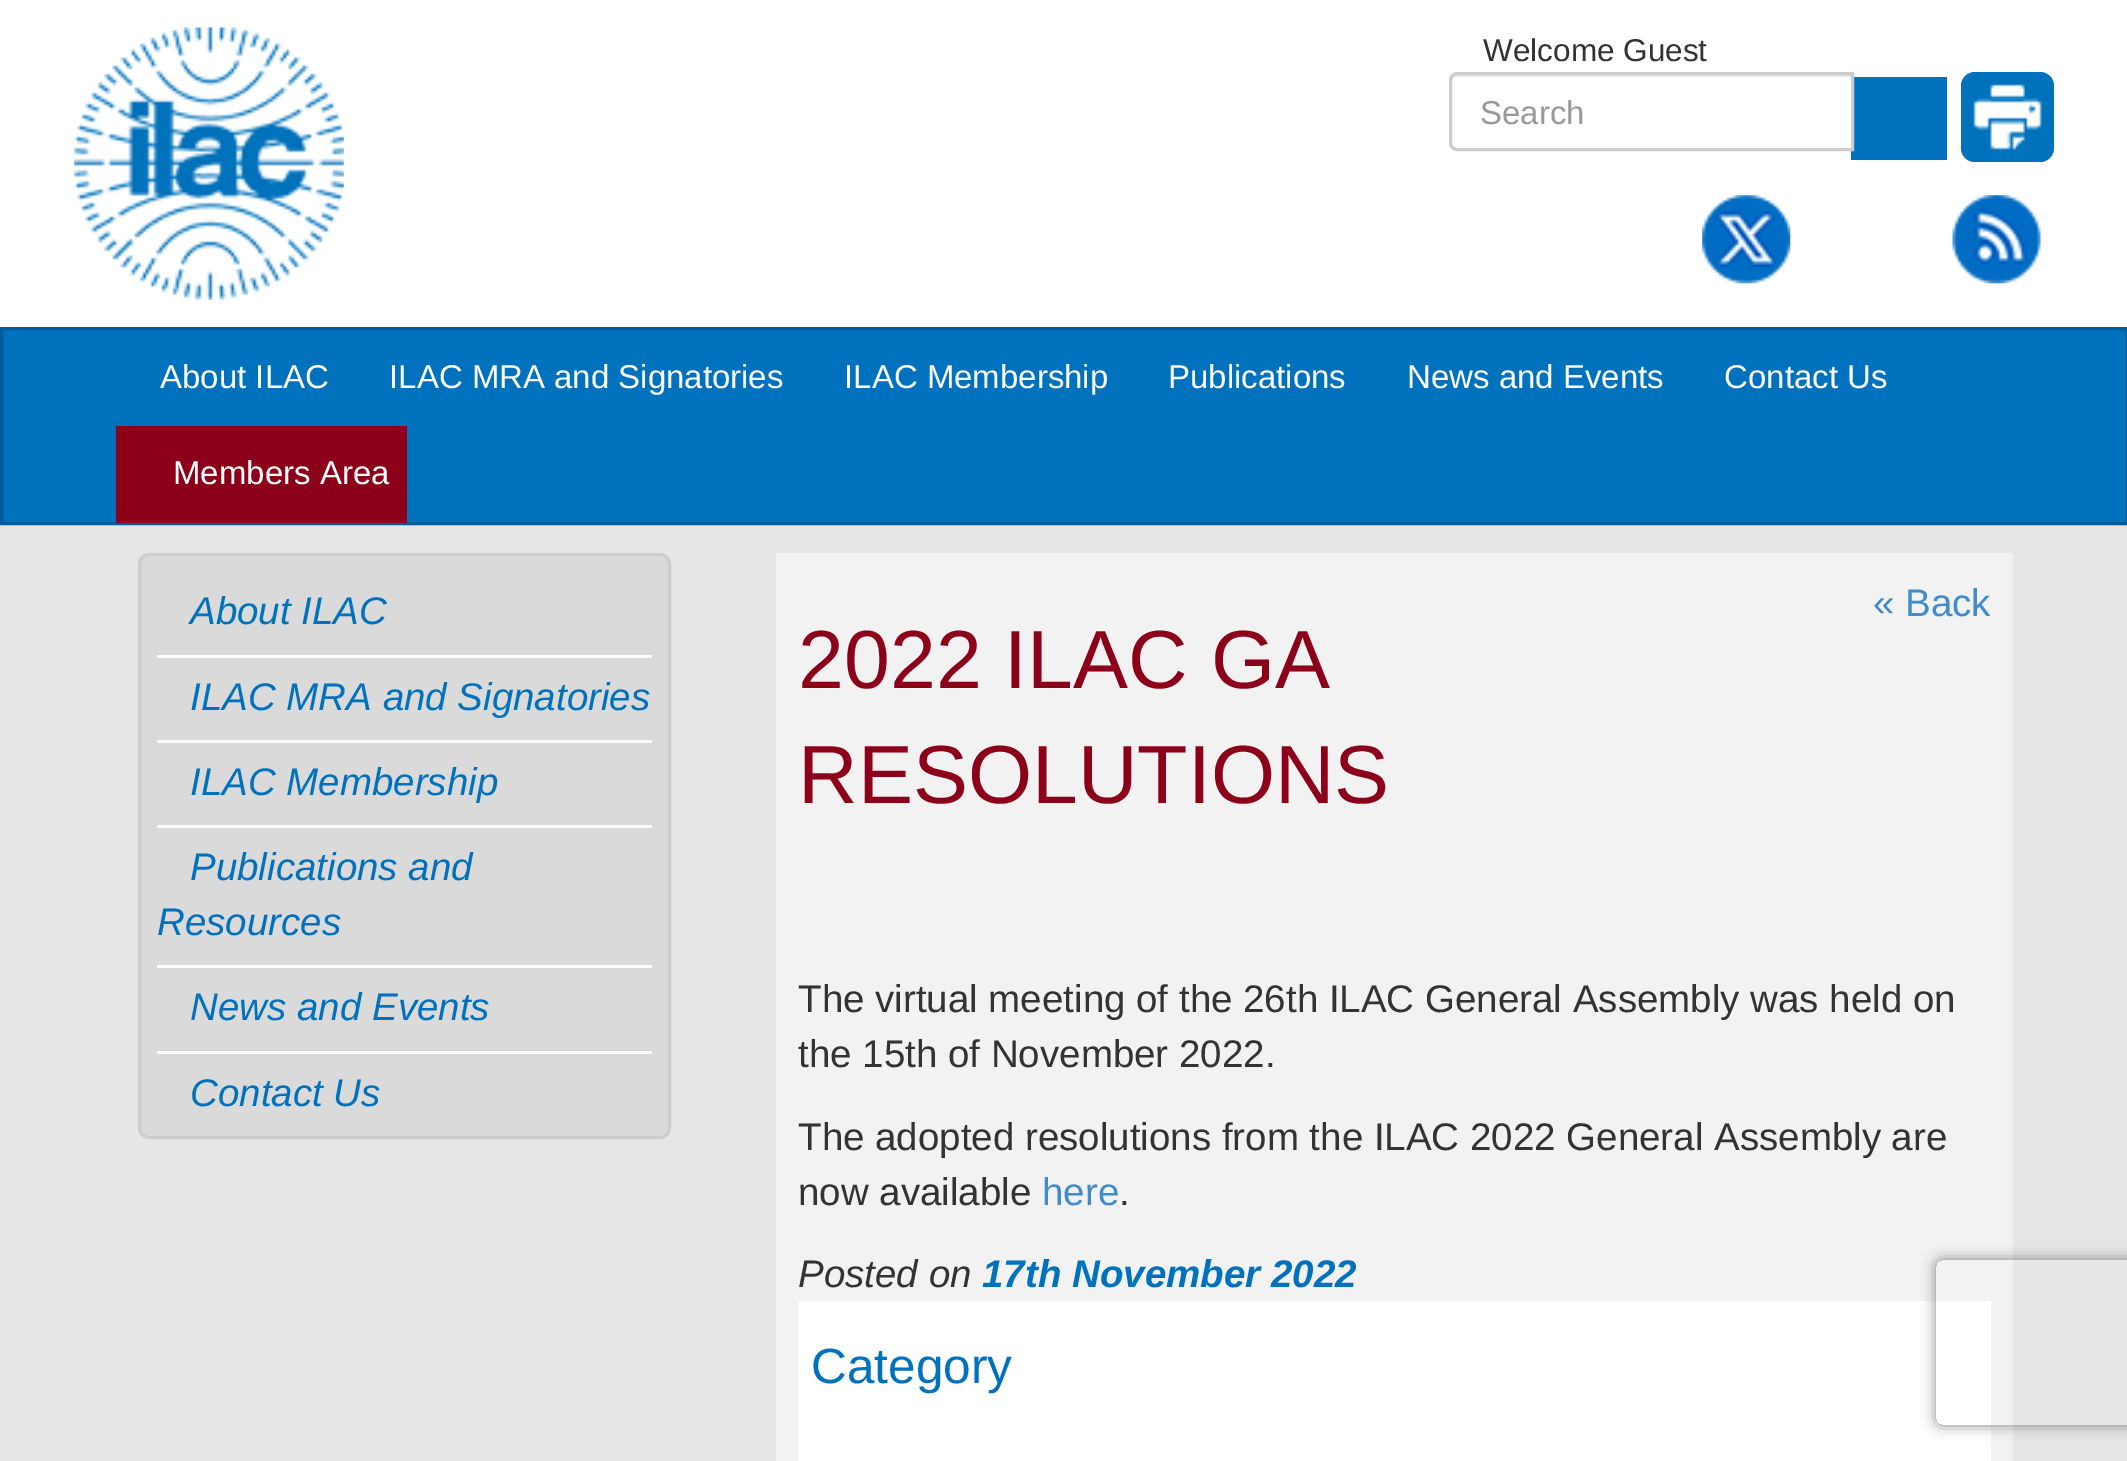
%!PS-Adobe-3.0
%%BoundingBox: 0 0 2127 1461
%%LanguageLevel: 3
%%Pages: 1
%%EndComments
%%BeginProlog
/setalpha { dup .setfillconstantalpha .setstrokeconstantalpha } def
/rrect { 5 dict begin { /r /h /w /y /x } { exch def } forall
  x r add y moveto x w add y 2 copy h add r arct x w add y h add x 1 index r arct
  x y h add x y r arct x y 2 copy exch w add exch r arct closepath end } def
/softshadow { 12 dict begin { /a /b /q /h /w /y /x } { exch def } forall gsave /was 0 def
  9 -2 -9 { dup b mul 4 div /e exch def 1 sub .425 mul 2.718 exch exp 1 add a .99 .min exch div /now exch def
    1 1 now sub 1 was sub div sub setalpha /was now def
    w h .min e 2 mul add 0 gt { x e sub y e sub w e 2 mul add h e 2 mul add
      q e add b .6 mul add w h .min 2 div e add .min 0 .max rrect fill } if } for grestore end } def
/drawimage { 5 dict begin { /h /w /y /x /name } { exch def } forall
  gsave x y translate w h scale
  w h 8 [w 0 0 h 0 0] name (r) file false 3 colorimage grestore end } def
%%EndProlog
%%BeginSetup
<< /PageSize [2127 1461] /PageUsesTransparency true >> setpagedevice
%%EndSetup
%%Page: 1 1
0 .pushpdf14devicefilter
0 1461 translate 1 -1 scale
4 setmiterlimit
0.902 setgray
0 0 2127 1461 rectfill
1 setgray
0 0 2127 327 rectfill
(images/1.raw) 74 27 270 273 drawimage
0 0.443 0.737 setrgbcolor
1851 77 96 83 rectfill
1 setgray
newpath 1457 72 moveto 1854 72 lineto 1854 151 lineto 1457 151 lineto 1452.5 151 1449 147.5 1449 143 curveto 1449 80 lineto 1449 75.5 1452.5 72 1457 72 curveto closepath fill
0.925 setgray
newpath 1458 77 moveto 1851 77 lineto 1851 74 lineto 1458 74 lineto 1453 74 1452 78 1452 82 curveto 1452 79 1454 77 1458 77 curveto closepath fill
0.8 setgray
3 setlinewidth
newpath 1457 73.5 moveto 1852.5 73.5 lineto 1852.5 149.5 lineto 1457 149.5 lineto 1453.5 149.5 1450.5 146.5 1450.5 143 curveto 1450.5 80 lineto 1450.5 76.5 1453.5 73.5 1457 73.5 curveto closepath stroke
0 0.443 0.737 setrgbcolor
1961 72 93 90 14 rrect fill
(images/2.raw) 1973 84 69 66 drawimage
(images/3.raw) 1702 195 89 89 drawimage
(images/4.raw) 1952 195 89 89 drawimage
newpath 1.5 328.5 moveto 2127.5 328.5 lineto 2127.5 523.5 lineto 1.5 523.5 lineto closepath gsave fill grestore
0.004 0.365 0.604 setrgbcolor
stroke
0.549 0 0.102 setrgbcolor
116 426 291 97 rectfill
0.855 setgray
139.5 554.5 530 583 9.5 rrect gsave fill grestore
0.808 0.804 0.804 setrgbcolor
stroke
1 setgray
157 655 495 3 rectfill
157 740 495 3 rectfill
157 825 495 3 rectfill
157 965 495 3 rectfill
157 1051 495 3 rectfill
0.949 setgray
776 553 1237 908 rectfill
1 setgray
798 1301 1193 160 rectfill
gsave
newpath 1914 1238 moveto 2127 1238 lineto 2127 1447 lineto 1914 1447 lineto closepath 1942 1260 moveto 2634 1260 lineto 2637.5 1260 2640 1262.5 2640 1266 curveto 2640 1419 lineto 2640 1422.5 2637.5 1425 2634 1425 curveto 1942 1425 lineto 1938.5 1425 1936 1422.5 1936 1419 curveto 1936 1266 lineto 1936 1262.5 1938.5 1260 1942 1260 curveto closepath eoclip newpath
0.502 setgray
1936 1260 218 165 6 7 1 softshadow
grestore
/LiberationSans-Regular [31.5 0 0 -31.5 0 0] selectfont
0.2 setgray
1483 61 moveto (Welcome Guest) show
/LiberationSans-Regular [33 0 0 -33 0 0] selectfont
0.6 setgray
1480 124 moveto (Search) show
1 setgray
160 388 moveto (About ILAC) show
389 388 moveto (ILAC MRA and Signatories) show
844 388 moveto (ILAC Membership) show
1168 388 moveto (Publications) show
1407 388 moveto (News and Events) show
1724 388 moveto (Contact Us) show
173 484 moveto (Members Area) show
/LiberationSans-Italic [38.5 0 0 -38.5 0 0] selectfont
0 0.443 0.737 setrgbcolor
190 624 moveto (About ILAC) show
190 710 moveto (ILAC MRA and Signatories) show
190 795 moveto (ILAC Membership) show
190 880 moveto (Publications and) show
157 935 moveto (Resources) show
190 1020 moveto (News and Events) show
190 1106 moveto (Contact Us) show
/LiberationSans-Regular [38.5 0 0 -38.5 0 0] selectfont
0.259 0.545 0.792 setrgbcolor
1873 616 moveto (« Back) show
/LiberationSans-Regular [82.5 0 0 -82.5 0 0] selectfont
0.549 0 0.102 setrgbcolor
798 688 moveto (2022 ILAC GA) show
798 803 moveto (RESOLUTIONS) show
/LiberationSans-Regular [38.5 0 0 -38.5 0 0] selectfont
0.2 setgray
798 1012 moveto (The virtual meeting of the 26th ILAC General Assembly was held on) show
798 1067 moveto (the 15th of November 2022.) show
798 1150 moveto (The adopted resolutions from the ILAC 2022 General Assembly are) show
798 1205 moveto (now available) show
0.259 0.545 0.792 setrgbcolor
1042 1205 moveto (here) show
0.2 setgray
1119 1205 moveto (.) show
/LiberationSans-Italic [38.5 0 0 -38.5 0 0] selectfont
798 1287 moveto (Posted on) show
/LiberationSans-BoldItalic [38.5 0 0 -38.5 0 0] selectfont
0 0.443 0.737 setrgbcolor
982 1287 moveto (17th November 2022) show
/LiberationSans-Regular [49.5 0 0 -49.5 0 0] selectfont
811 1383 moveto (Category) show
.poppdf14devicefilter showpage
%%EOF
